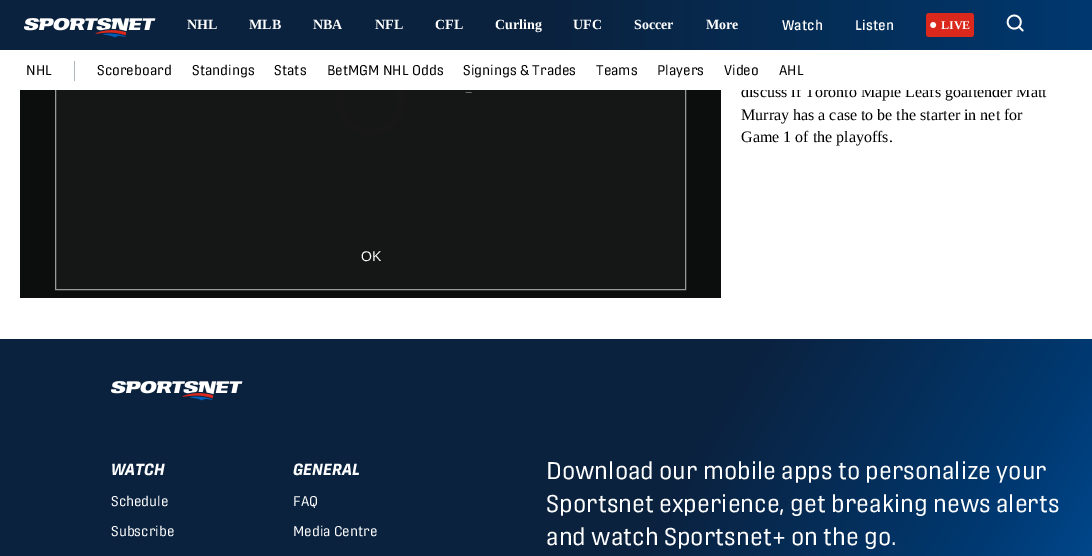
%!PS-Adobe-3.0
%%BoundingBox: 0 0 1092 556
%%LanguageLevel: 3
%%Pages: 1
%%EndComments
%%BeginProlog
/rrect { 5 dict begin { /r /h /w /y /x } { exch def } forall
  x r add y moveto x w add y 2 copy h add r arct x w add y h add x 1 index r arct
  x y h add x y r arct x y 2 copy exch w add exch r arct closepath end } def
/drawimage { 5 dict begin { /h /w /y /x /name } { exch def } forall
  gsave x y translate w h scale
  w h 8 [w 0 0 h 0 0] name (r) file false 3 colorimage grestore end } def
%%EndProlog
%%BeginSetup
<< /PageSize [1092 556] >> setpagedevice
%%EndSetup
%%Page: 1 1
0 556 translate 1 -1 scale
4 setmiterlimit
1 setgray
0 0 1092 556 rectfill
0.043 0.055 0.047 setrgbcolor
20 90 701 208 rectfill
0.082 0.086 0.086 setrgbcolor
56 90 629 199 rectfill
0.09 0.09 0.094 setrgbcolor
8 setlinewidth
newpath 371 101 31 0 360 arc closepath stroke
0.6 setgray
1 setlinewidth
55.5 -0.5 630 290 rectstroke
gsave newpath 0 0 moveto 1092 0 lineto 1092 50 lineto 0 50 lineto closepath clip newpath
<< /ShadingType 2 /ColorSpace /DeviceRGB /Coords [0 25 1092 25] /Extend [true true] /Function << /FunctionType 3 /Domain [0 1] /Functions [<< /FunctionType 2 /Domain [0 1] /C0 [0.043 0.133 0.243] /C1 [0.043 0.133 0.243] /N 1 >> << /FunctionType 2 /Domain [0 1] /C0 [0.043 0.133 0.243] /C1 [0 0.22 0.435] /N 1 >>] /Bounds [0.5] /Encode [0 1 0 1] >> >> shfill grestore
(images/1.raw) 24 18 132 20 drawimage
0.855 0.161 0.11 setrgbcolor
926 13 48 24 3 rrect fill
(images/2.raw) 930 22 7 6 drawimage
(images/3.raw) 1006 14 18 18 drawimage
gsave newpath 0 339 moveto 1092 339 lineto 1092 556 lineto 0 556 lineto closepath clip newpath
<< /ShadingType 2 /ColorSpace /DeviceRGB /Coords [16 312 1076 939] /Extend [true true] /Function << /FunctionType 3 /Domain [0 1] /Functions [<< /FunctionType 2 /Domain [0 1] /C0 [0.043 0.133 0.243] /C1 [0.043 0.133 0.243] /N 1 >> << /FunctionType 2 /Domain [0 1] /C0 [0.043 0.133 0.243] /C1 [0 0.22 0.435] /N 1 >> << /FunctionType 2 /Domain [0 1] /C0 [0 0.22 0.435] /C1 [0 0.369 0.722] /N 1 >>] /Bounds [0.53 0.76] /Encode [0 1 0 1 0 1] >> >> shfill grestore
(images/1.raw) 111 381 132 20 drawimage
/LiberationSerif-Bold [14 0 0 -14 0 0] selectfont
1 setgray
187 29 moveto (NHL) show
249 29 moveto (MLB) show
313 29 moveto (NBA) show
375 29 moveto (NFL) show
435 29 moveto (CFL) show
495 29 moveto (Curling) show
573 29 moveto (UFC) show
634 29 moveto (Soccer) show
706 29 moveto (More) show
/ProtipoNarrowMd-Medium [14 0 0 -14 0 0] selectfont
782 30 moveto (Watch) show
855 30 moveto (Listen) show
/LiberationSerif-Bold [12 0 0 -12 0 0] selectfont
941 29 moveto (LIVE) show
/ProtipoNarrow-Regular [14 0 0 -14 0 0] selectfont
0 setgray
26 75 moveto (NHL) show
/LiberationSans-Regular [10 0 0 -10 0 0] selectfont
0.541 setgray
466 91 moveto (_) show
/LiberationSans-Regular [14 0 0 -14 0 0] selectfont
1 setgray
361 261 moveto (OK) show
/LiberationSerif-Regular [16 0 0 -16 0 0] selectfont
0 setgray
741 97 moveto (discuss if Toronto Maple Leafs goaltender Matt) show
1 setgray
55 50 992 40 rectfill
/ProtipoNarrow-Regular [14 0 0 -14 0 0] selectfont
0 setgray
779 75 moveto (AHL) show
724 75 moveto (Video) show
657 75 moveto (Players) show
596 75 moveto (Teams) show
463 75 moveto (Signings & Trades) show
327 75 moveto (BetMGM NHL Odds) show
274 75 moveto (Stats) show
192 75 moveto (Standings) show
97 75 moveto (Scoreboard) show
0.678 0.71 0.741 setrgbcolor
74 61 1 20 rectfill
/LiberationSerif-Regular [16 0 0 -16 0 0] selectfont
0 setgray
741 120 moveto (Murray has a case to be the starter in net for) show
741 142 moveto (Game 1 of the playoffs.) show
/ProtipoNarrow-BoldItalic [16 0 0 -16 0 0] selectfont
1 setgray
111 475 moveto (WATCH) show
/ProtipoNarrow-Regular [14 0 0 -14 0 0] selectfont
111 506 moveto (Schedule) show
111 536 moveto (Subscribe) show
/ProtipoNarrow-BoldItalic [16 0 0 -16 0 0] selectfont
293 475 moveto (GENERAL) show
/ProtipoNarrow-Regular [14 0 0 -14 0 0] selectfont
293 506 moveto (FAQ) show
293 536 moveto (Media Centre) show
/ProtipoNarrow-Regular [24 0 0 -24 0 0] selectfont
546 479 moveto (Download our mobile apps to personalize your) show
546 512 moveto (Sportsnet experience, get breaking news alerts) show
546 545 moveto (and watch Sportsnet+ on the go.) show
showpage
%%EOF
